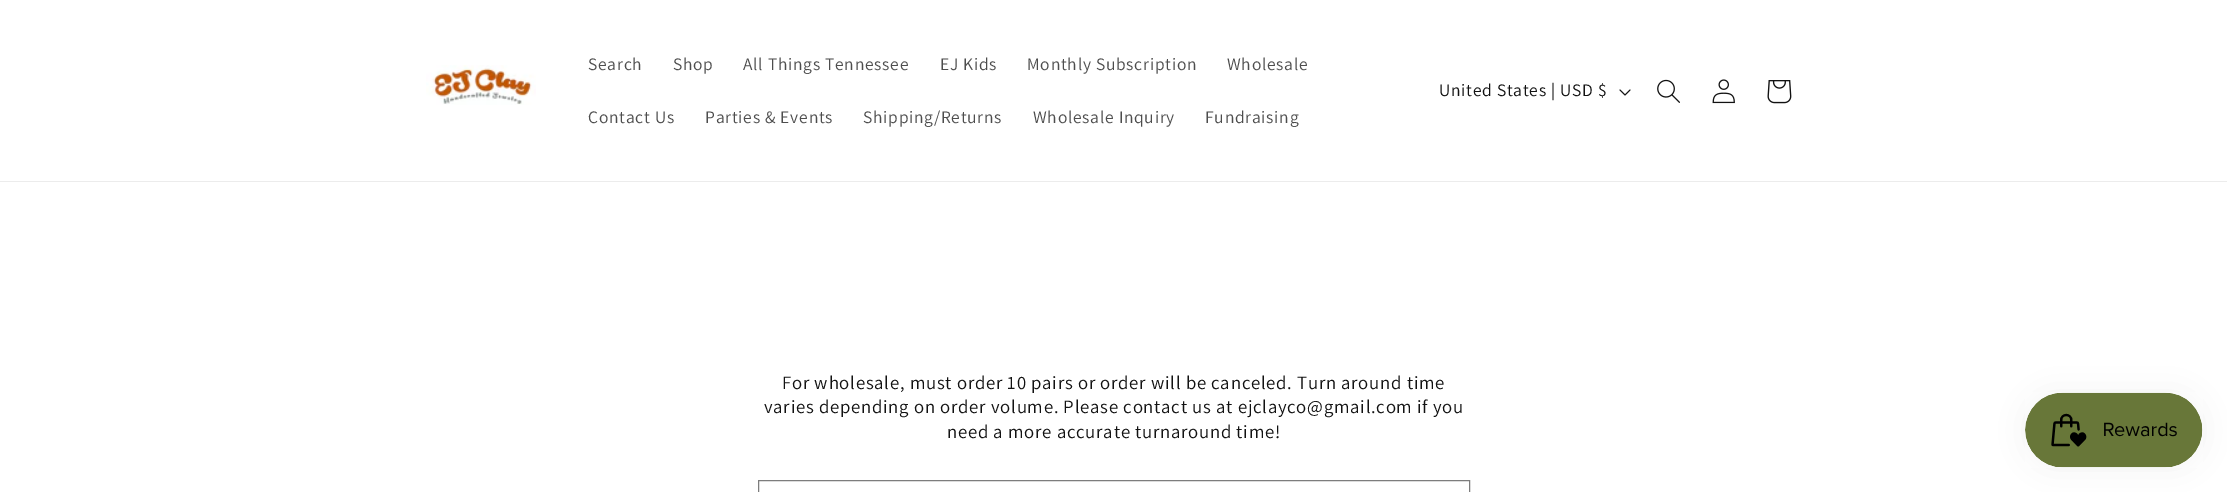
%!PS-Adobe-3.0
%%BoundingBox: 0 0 2227 492
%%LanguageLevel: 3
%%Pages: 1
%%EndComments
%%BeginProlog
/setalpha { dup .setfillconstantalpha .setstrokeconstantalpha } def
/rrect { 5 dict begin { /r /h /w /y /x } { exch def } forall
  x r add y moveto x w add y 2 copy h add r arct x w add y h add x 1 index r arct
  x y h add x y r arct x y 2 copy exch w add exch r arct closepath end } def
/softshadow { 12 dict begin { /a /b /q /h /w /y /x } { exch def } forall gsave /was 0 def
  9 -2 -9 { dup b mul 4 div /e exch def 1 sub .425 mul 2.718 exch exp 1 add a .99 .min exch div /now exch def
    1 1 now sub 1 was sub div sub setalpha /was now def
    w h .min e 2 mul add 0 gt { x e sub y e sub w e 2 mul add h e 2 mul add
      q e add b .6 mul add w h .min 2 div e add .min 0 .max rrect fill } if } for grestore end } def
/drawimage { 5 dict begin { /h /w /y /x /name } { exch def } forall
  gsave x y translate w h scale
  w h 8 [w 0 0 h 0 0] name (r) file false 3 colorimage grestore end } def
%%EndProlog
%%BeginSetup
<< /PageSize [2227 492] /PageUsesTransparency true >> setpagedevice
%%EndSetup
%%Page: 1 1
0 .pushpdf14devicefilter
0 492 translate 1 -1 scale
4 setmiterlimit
1 setgray
0 0 2227 492 rectfill
0.925 setgray
0 181 2227 1 rectfill
(images/1.raw) 426 65 110 40 drawimage
(images/2.raw) 1619 89 12 7 drawimage
(images/3.raw) 1657 79 23 24 drawimage
(images/4.raw) 1712 79 23 25 drawimage
(images/5.raw) 1767 80 25 24 drawimage
0.49 setgray
758.5 480.5 711 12 rectstroke
0 setgray
2025 393 178 75 37.5 15.5 0.05 softshadow
(images/6.raw) 2025 392 178 76 drawimage
/Assistant-Regular [17.5 0 0 -17.5 0 0] selectfont
0.302 setgray
588 70 moveto 0.75 0 (Search) ashow
673 70 moveto 0.75 0 (Shop) ashow
743 70 moveto 0.75 0 (All Things Tennessee) ashow
940 70 moveto 0.75 0 (EJ Kids) ashow
1027 70 moveto 0.75 0 (Monthly Subscription) ashow
1227 70 moveto 0.75 0 (Wholesale) ashow
588 123 moveto 0.75 0 (Contact Us) ashow
705 123 moveto 0.75 0 (Parties & Events) ashow
863 123 moveto 0.75 0 (Shipping/Returns) ashow
1033 123 moveto 0.75 0 (Wholesale Inquiry) ashow
1205 123 moveto 0.75 0 (Fundraising) ashow
0.071 setgray
1439 96 moveto 0.75 0 (United States | USD $) ashow
/Assistant-Regular [18.75 0 0 -18.75 0 0] selectfont
782 389 moveto 0.75 0 (For wholesale, must order 10 pairs or order will be canceled. Turn around time) ashow
764 413 moveto 0.75 0 (varies depending on order volume. Please contact us at ejclayco@gmail.com if you) ashow
947 438 moveto 0.75 0 (need a more accurate turnaround time!) ashow
.poppdf14devicefilter showpage
%%EOF
